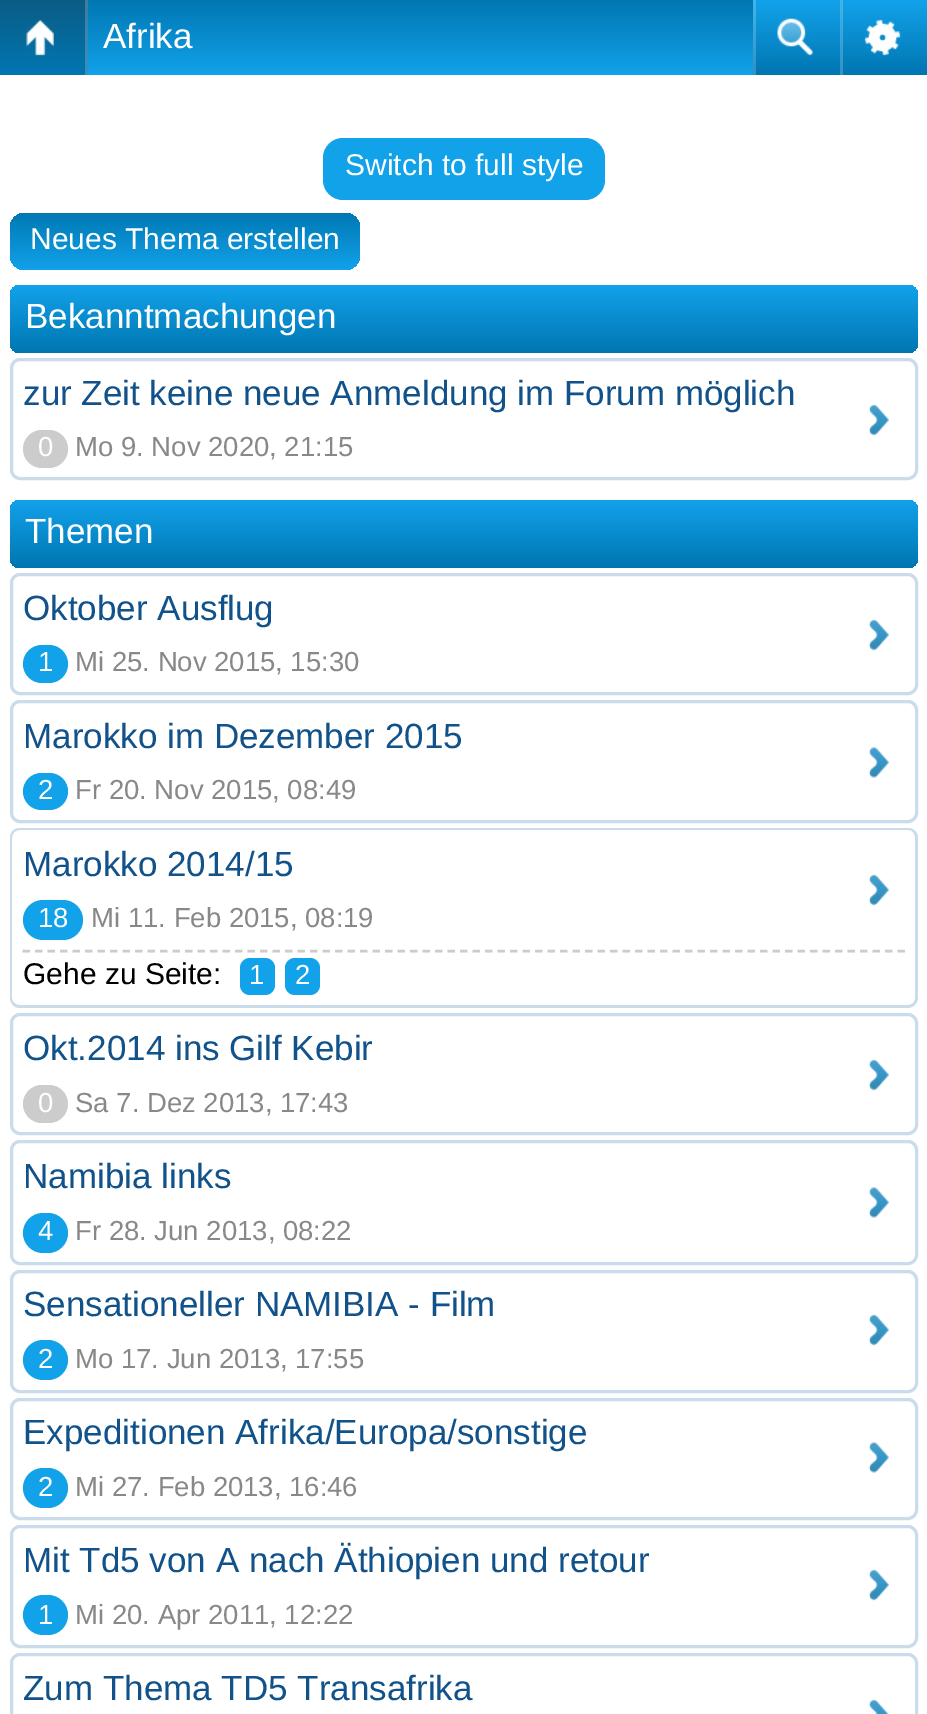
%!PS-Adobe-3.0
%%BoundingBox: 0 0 927 1714
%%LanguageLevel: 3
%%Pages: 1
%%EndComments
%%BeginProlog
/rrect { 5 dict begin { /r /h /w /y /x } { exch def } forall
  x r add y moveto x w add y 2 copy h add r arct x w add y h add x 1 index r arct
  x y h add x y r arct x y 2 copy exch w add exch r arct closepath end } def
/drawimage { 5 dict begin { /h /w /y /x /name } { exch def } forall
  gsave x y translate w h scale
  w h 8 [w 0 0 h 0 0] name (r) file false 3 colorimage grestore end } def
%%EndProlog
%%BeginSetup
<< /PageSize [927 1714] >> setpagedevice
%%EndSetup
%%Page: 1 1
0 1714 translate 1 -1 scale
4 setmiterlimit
1 setgray
0 0 927 1714 rectfill
gsave newpath 88 0 moveto 753 0 lineto 753 75 lineto 88 75 lineto closepath clip newpath
<< /ShadingType 2 /ColorSpace /DeviceRGB /Coords [464 0 464 75] /Extend [true true] /Function << /FunctionType 2 /Domain [0 1] /C0 [0 0.467 0.698] /C1 [0.071 0.635 0.918] /N 1 >> >> shfill grestore
gsave newpath 0 0 moveto 85 0 lineto 85 75 lineto 0 75 lineto closepath clip newpath
<< /ShadingType 2 /ColorSpace /DeviceRGB /Coords [44 0 44 75] /Extend [true true] /Function << /FunctionType 2 /Domain [0 1] /C0 [0.043 0.361 0.518] /C1 [0 0.467 0.698] /N 1 >> >> shfill grestore
gsave newpath 85 0 moveto 88 0 lineto 88 75 lineto 85 75 lineto closepath clip newpath
<< /ShadingType 2 /ColorSpace /DeviceRGB /Coords [44 0 44 75] /Extend [true true] /Function << /FunctionType 2 /Domain [0 1] /C0 [0.235 0.49 0.616] /C1 [0.2 0.573 0.757] /N 1 >> >> shfill grestore
(images/1.raw) 26 19 28 37 drawimage
gsave newpath 756 0 moveto 840 0 lineto 840 75 lineto 756 75 lineto closepath clip newpath
<< /ShadingType 2 /ColorSpace /DeviceRGB /Coords [796 0 796 75] /Extend [true true] /Function << /FunctionType 2 /Domain [0 1] /C0 [0.071 0.635 0.918] /C1 [0 0.463 0.694] /N 1 >> >> shfill grestore
gsave newpath 753 0 moveto 756 0 lineto 756 75 lineto 753 75 lineto closepath clip newpath
<< /ShadingType 2 /ColorSpace /DeviceRGB /Coords [796 0 796 75] /Extend [true true] /Function << /FunctionType 2 /Domain [0 1] /C0 [0.255 0.71 0.933] /C1 [0.2 0.569 0.757] /N 1 >> >> shfill grestore
(images/2.raw) 777 18 36 38 drawimage
gsave newpath 843 0 moveto 927 0 lineto 927 75 lineto 843 75 lineto closepath clip newpath
<< /ShadingType 2 /ColorSpace /DeviceRGB /Coords [884 0 884 75] /Extend [true true] /Function << /FunctionType 2 /Domain [0 1] /C0 [0.071 0.635 0.918] /C1 [0 0.463 0.694] /N 1 >> >> shfill grestore
gsave newpath 840 0 moveto 843 0 lineto 843 75 lineto 840 75 lineto closepath clip newpath
<< /ShadingType 2 /ColorSpace /DeviceRGB /Coords [884 0 884 75] /Extend [true true] /Function << /FunctionType 2 /Domain [0 1] /C0 [0.255 0.71 0.933] /C1 [0.2 0.569 0.757] /N 1 >> >> shfill grestore
(images/3.raw) 864 19 37 37 drawimage
0.071 0.635 0.918 setrgbcolor
323 138 282 62 20 rrect fill
gsave 10 213 350 57 15 rrect clip newpath
<< /ShadingType 2 /ColorSpace /DeviceRGB /Coords [185 212 185 270] /Extend [true true] /Function << /FunctionType 2 /Domain [0 1] /C0 [0 0.467 0.698] /C1 [0.071 0.635 0.918] /N 1 >> >> shfill grestore
gsave 10 285 908 68 10 rrect clip newpath
<< /ShadingType 2 /ColorSpace /DeviceRGB /Coords [464 285 464 353] /Extend [true true] /Function << /FunctionType 2 /Domain [0 1] /C0 [0.071 0.635 0.918] /C1 [0 0.463 0.694] /N 1 >> >> shfill grestore
0.792 0.863 0.922 setrgbcolor
3 setlinewidth
11.5 359.5 905 119 8.5 rrect stroke
(images/4.raw) 868 404 21 32 drawimage
0.8 setgray
23 430 45 38 19 rrect fill
gsave 10 500 908 68 10 rrect clip newpath
<< /ShadingType 2 /ColorSpace /DeviceRGB /Coords [464 500 464 568] /Extend [true true] /Function << /FunctionType 2 /Domain [0 1] /C0 [0.071 0.635 0.918] /C1 [0 0.463 0.694] /N 1 >> >> shfill grestore
0.792 0.863 0.922 setrgbcolor
11.5 574.5 905 119 8.5 rrect stroke
(images/4.raw) 868 619 21 32 drawimage
0.071 0.635 0.918 setrgbcolor
23 645 45 38 19 rrect fill
0.792 0.863 0.922 setrgbcolor
11.5 701.5 905 120 8.5 rrect stroke
(images/5.raw) 868 747 21 31 drawimage
0.071 0.635 0.918 setrgbcolor
23 773 45 37 18.5 rrect fill
0.792 0.863 0.922 setrgbcolor
newpath 20 828 moveto 908 828 lineto 913 828 918 832 918 838 curveto 918 952 lineto 10 952 lineto 10 838 lineto 10 832 14 828 20 828 curveto closepath 20 830 moveto 908 830 lineto 912 830 915 833 915 838 curveto 915 952 lineto 12 952 lineto 12 838 lineto 12 833 16 830 20 830 curveto closepath eofill
(images/4.raw) 868 874 21 32 drawimage
0.8 setgray
2.5 setlinewidth
[7.5 5] 0 setdash
newpath 22.5 951 moveto 905 951 lineto stroke
0.071 0.635 0.918 setrgbcolor
23 900 60 40 20 rrect fill
0.792 0.863 0.922 setrgbcolor
newpath 10 952 moveto 918 952 lineto 918 998 lineto 918 1003 913 1008 908 1008 curveto 20 1008 lineto 14 1008 10 1003 10 998 curveto closepath 12 952 moveto 915 952 lineto 915 998 lineto 915 1002 912 1005 908 1005 curveto 20 1005 lineto 16 1005 12 1002 12 998 curveto closepath eofill
0.071 0.635 0.918 setrgbcolor
240 958 35 37 10 rrect fill
285 958 35 37 10 rrect fill
0.792 0.863 0.922 setrgbcolor
3 setlinewidth
[] 0 setdash
11.5 1014.5 905 119 8.5 rrect stroke
(images/4.raw) 868 1059 21 32 drawimage
0.8 setgray
23 1085 45 38 19 rrect fill
0.792 0.863 0.922 setrgbcolor
11.5 1141.5 905 122 8.5 rrect stroke
(images/5.raw) 868 1187 21 31 drawimage
0.071 0.635 0.918 setrgbcolor
23 1213 45 40 20 rrect fill
0.792 0.863 0.922 setrgbcolor
11.5 1271.5 905 120 8.5 rrect stroke
(images/4.raw) 868 1314 21 32 drawimage
0.071 0.635 0.918 setrgbcolor
23 1340 45 40 20 rrect fill
0.792 0.863 0.922 setrgbcolor
11.5 1399.5 905 119 8.5 rrect stroke
(images/5.raw) 868 1442 21 31 drawimage
0.071 0.635 0.918 setrgbcolor
23 1468 45 40 20 rrect fill
0.792 0.863 0.922 setrgbcolor
11.5 1526.5 905 120 8.5 rrect stroke
(images/4.raw) 868 1569 21 32 drawimage
0.071 0.635 0.918 setrgbcolor
23 1595 45 40 20 rrect fill
0.792 0.863 0.922 setrgbcolor
11.5 1654.5 905 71 8.5 rrect stroke
(images/6.raw) 868 1699 21 15 drawimage
/LiberationSans-Regular [35 0 0 -35 0 0] selectfont
1 setgray
103 48 moveto (Afrika) show
/LiberationSans-Regular [30 0 0 -30 0 0] selectfont
345 175 moveto (Switch to full style) show
30 249 moveto (Neues Thema erstellen) show
/LiberationSans-Regular [35 0 0 -35 0 0] selectfont
25 328 moveto (Bekanntmachungen) show
0.063 0.322 0.537 setrgbcolor
23 405 moveto (zur Zeit keine neue Anmeldung im Forum möglich) show
/LiberationSans-Regular [27.5 0 0 -27.5 0 0] selectfont
1 setgray
38 456 moveto (0) show
0.533 setgray
75 456 moveto (Mo 9. Nov 2020, 21:15) show
/LiberationSans-Regular [35 0 0 -35 0 0] selectfont
1 setgray
25 543 moveto (Themen) show
0.063 0.322 0.537 setrgbcolor
23 620 moveto (Oktober Ausflug) show
/LiberationSans-Regular [27.5 0 0 -27.5 0 0] selectfont
1 setgray
38 671 moveto (1) show
0.533 setgray
75 671 moveto (Mi 25. Nov 2015, 15:30) show
/LiberationSans-Regular [35 0 0 -35 0 0] selectfont
0.063 0.322 0.537 setrgbcolor
23 748 moveto (Marokko im Dezember 2015) show
/LiberationSans-Regular [27.5 0 0 -27.5 0 0] selectfont
1 setgray
38 799 moveto (2) show
0.533 setgray
75 799 moveto (Fr 20. Nov 2015, 08:49) show
/LiberationSans-Regular [35 0 0 -35 0 0] selectfont
0.063 0.322 0.537 setrgbcolor
23 876 moveto (Marokko 2014/15) show
/LiberationSans-Regular [27.5 0 0 -27.5 0 0] selectfont
1 setgray
38 927 moveto (18) show
0.533 setgray
91 927 moveto (Mi 11. Feb 2015, 08:19) show
/LiberationSans-Regular [30 0 0 -30 0 0] selectfont
0 setgray
23 984 moveto (Gehe zu Seite:) show
/LiberationSans-Regular [27.5 0 0 -27.5 0 0] selectfont
1 setgray
249 984 moveto (1) show
295 984 moveto (2) show
/LiberationSans-Regular [35 0 0 -35 0 0] selectfont
0.063 0.322 0.537 setrgbcolor
23 1060 moveto (Okt.2014 ins Gilf Kebir) show
/LiberationSans-Regular [27.5 0 0 -27.5 0 0] selectfont
1 setgray
38 1112 moveto (0) show
0.533 setgray
75 1112 moveto (Sa 7. Dez 2013, 17:43) show
/LiberationSans-Regular [35 0 0 -35 0 0] selectfont
0.063 0.322 0.537 setrgbcolor
23 1188 moveto (Namibia links) show
/LiberationSans-Regular [27.5 0 0 -27.5 0 0] selectfont
1 setgray
38 1240 moveto (4) show
0.533 setgray
75 1240 moveto (Fr 28. Jun 2013, 08:22) show
/LiberationSans-Regular [35 0 0 -35 0 0] selectfont
0.063 0.322 0.537 setrgbcolor
23 1316 moveto (Sensationeller NAMIBIA - Film) show
/LiberationSans-Regular [27.5 0 0 -27.5 0 0] selectfont
1 setgray
38 1368 moveto (2) show
0.533 setgray
75 1368 moveto (Mo 17. Jun 2013, 17:55) show
/LiberationSans-Regular [35 0 0 -35 0 0] selectfont
0.063 0.322 0.537 setrgbcolor
23 1444 moveto (Expeditionen Afrika/Europa/sonstige) show
/LiberationSans-Regular [27.5 0 0 -27.5 0 0] selectfont
1 setgray
38 1496 moveto (2) show
0.533 setgray
75 1496 moveto (Mi 27. Feb 2013, 16:46) show
/LiberationSans-Regular [35 0 0 -35 0 0] selectfont
0.063 0.322 0.537 setrgbcolor
23 1572 moveto (Mit Td5 von A nach Äthiopien und retour) show
/LiberationSans-Regular [27.5 0 0 -27.5 0 0] selectfont
1 setgray
38 1624 moveto (1) show
0.533 setgray
75 1624 moveto (Mi 20. Apr 2011, 12:22) show
/LiberationSans-Regular [35 0 0 -35 0 0] selectfont
0.063 0.322 0.537 setrgbcolor
23 1700 moveto (Zum Thema TD5 Transafrika) show
showpage
%%EOF
